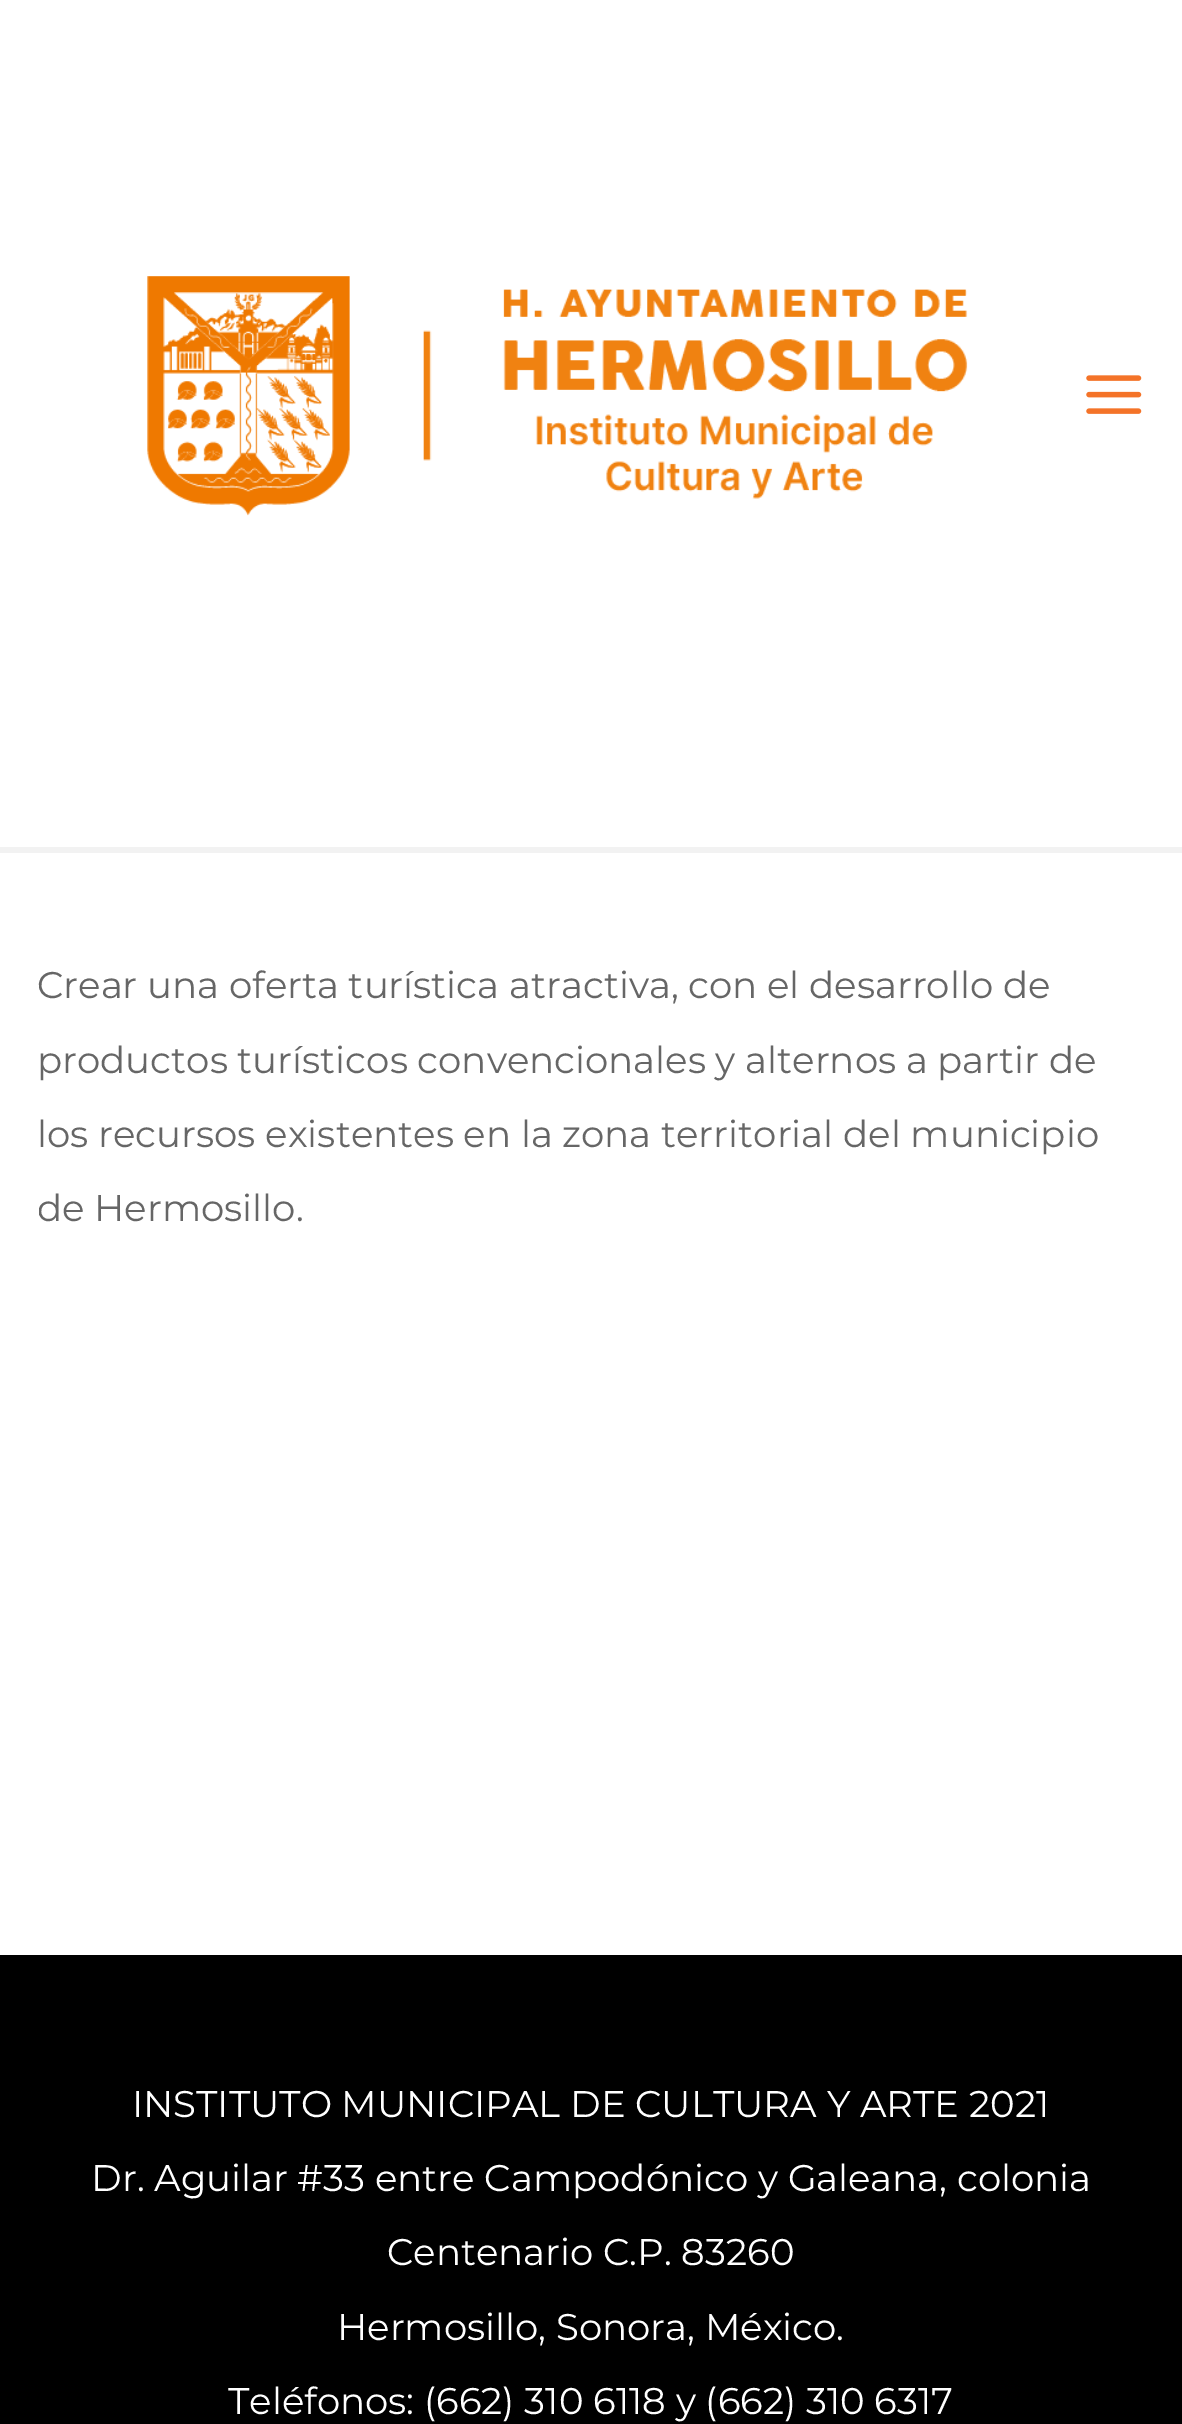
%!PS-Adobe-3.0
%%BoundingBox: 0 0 1182 2424
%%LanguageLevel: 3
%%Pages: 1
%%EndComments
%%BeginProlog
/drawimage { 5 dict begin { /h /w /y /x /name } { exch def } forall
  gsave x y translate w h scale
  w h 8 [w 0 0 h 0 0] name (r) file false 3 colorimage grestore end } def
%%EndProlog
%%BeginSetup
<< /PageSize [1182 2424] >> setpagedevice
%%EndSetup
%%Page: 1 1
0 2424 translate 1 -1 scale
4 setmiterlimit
1 setgray
0 0 1182 2424 rectfill
(images/1.raw) 147 276 821 240 drawimage
(images/2.raw) 1086 375 56 39 drawimage
0.949 setgray
0 847 1182 6 rectfill
0 setgray
0 1955 1182 469 rectfill
/Montserrat-Regular [37.1 0 0 -37.1 0 0] selectfont
0.4 setgray
37 998 moveto (Crear una oferta turística atractiva, con el desarrollo de) show
37 1073 moveto (productos turísticos convencionales y alternos a partir de) show
37 1147 moveto (los recursos existentes en la zona territorial del municipio) show
gsave
39 949 1108 335 rectclip
37 1221 moveto (de Hermosillo.) show
grestore
1 setgray
132 2117 moveto (INSTITUTO MUNICIPAL DE CULTURA Y ARTE 2021) show
91 2191 moveto (Dr. Aguilar #33 entre Campodónico y Galeana, colonia) show
387 2265 moveto (Centenario C.P. 83260) show
337 2340 moveto (Hermosillo, Sonora, México.) show
228 2414 moveto (Teléfonos: \(662\) 310 6118 y \(662\) 310 6317) show
showpage
%%EOF
